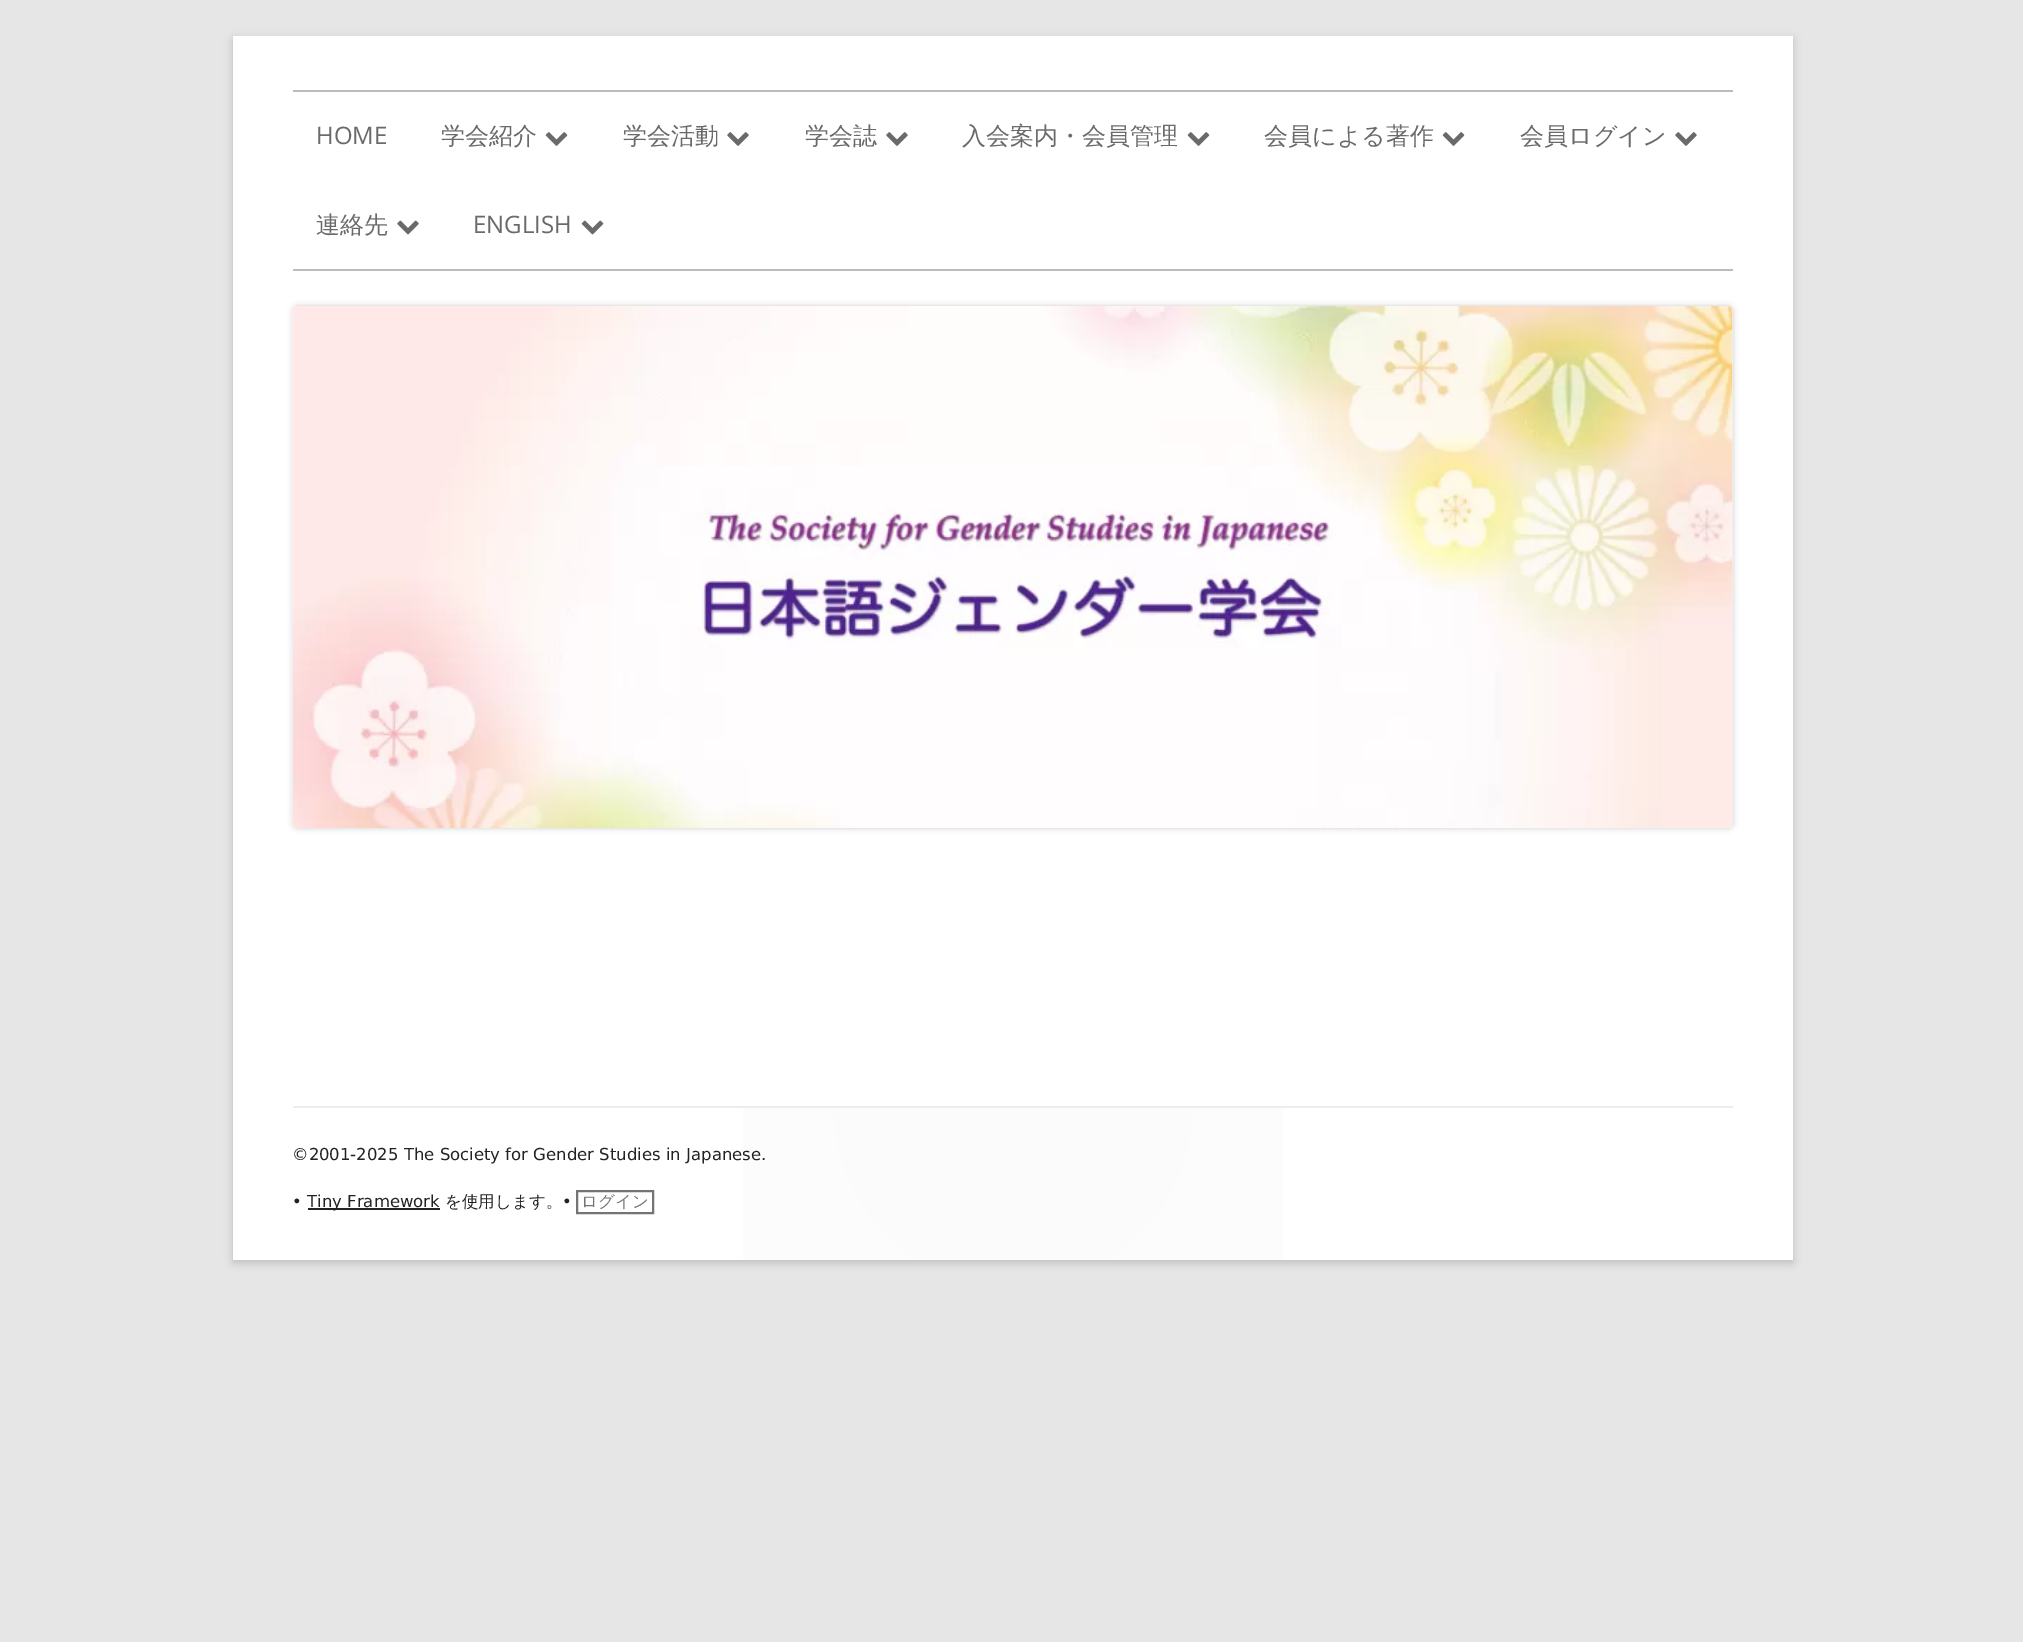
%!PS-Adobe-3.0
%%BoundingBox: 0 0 2023 1642
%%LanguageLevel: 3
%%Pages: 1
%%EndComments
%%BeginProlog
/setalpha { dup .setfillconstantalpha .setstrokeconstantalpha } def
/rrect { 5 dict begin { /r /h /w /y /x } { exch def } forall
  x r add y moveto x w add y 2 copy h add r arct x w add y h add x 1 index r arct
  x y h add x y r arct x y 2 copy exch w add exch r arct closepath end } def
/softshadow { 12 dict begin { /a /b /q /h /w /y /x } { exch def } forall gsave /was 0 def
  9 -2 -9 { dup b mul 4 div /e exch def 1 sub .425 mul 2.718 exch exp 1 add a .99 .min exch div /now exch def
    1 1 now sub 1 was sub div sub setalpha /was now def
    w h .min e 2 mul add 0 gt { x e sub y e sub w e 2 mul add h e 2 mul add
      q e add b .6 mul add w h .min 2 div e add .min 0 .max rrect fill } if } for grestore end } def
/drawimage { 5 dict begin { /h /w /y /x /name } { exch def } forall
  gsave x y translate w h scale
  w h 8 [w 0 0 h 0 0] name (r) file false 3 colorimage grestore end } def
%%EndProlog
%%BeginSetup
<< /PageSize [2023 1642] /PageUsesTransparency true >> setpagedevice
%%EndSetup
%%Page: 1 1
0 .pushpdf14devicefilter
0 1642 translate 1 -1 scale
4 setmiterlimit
0.902 setgray
0 0 2023 1642 rectfill
0.392 setgray
233 39 1560 1224 0 4.5 0.3 softshadow
1 setgray
233 36 1560 1224 rectfill
0.733 setgray
293 90 1440 2 rectfill
293 269 1440 2 rectfill
(images/1.raw) 545 132 23 14 drawimage
(images/2.raw) 727 132 22 14 drawimage
(images/2.raw) 886 132 22 14 drawimage
(images/1.raw) 1187 132 23 14 drawimage
(images/1.raw) 1442 132 23 14 drawimage
(images/2.raw) 1675 132 22 14 drawimage
(images/3.raw) 397 220 22 15 drawimage
(images/4.raw) 581 220 23 15 drawimage
0 setgray
293 306 1440 522 5 3 0.2 softshadow
(images/5.raw) 292 306 1441 522 drawimage
gsave newpath 743 1108 moveto 1283 1108 lineto 1283 1260 lineto 743 1260 lineto closepath clip newpath 1013 1107 translate 720 720 scale
<< /ShadingType 3 /ColorSpace /DeviceRGB /Coords [0 0 0 0 0 1] /Extend [true true] /Function << /FunctionType 2 /Domain [0 1] /C0 [0.984 0.984 0.984] /C1 [1 1 1] /N 1 >> >> shfill grestore
0.929 setgray
293 1106 1440 2 rectfill
0.133 setgray
308 1208 132 2 rectfill
0.455 setgray
2 setlinewidth
577 1191 76 22 rectstroke
/OpenSans-Regular [24 0 0 -24 0 0] selectfont
0.416 setgray
316 144 moveto (HOME) show
/WenQuanYiZenHei-Medium [24 0 0 -24 0 0] selectfont
441 144 moveto (学会紹介) show
623 144 moveto (学会活動) show
805 144 moveto (学会誌) show
962 144 moveto (入会案内・会員管理) show
1264 144 moveto (会員による著作) show
1520 144 moveto (会員ログイン) show
316 233 moveto (連絡先) show
/OpenSans-Regular [24 0 0 -24 0 0] selectfont
473 233 moveto (ENGLISH) show
/DejaVuSans-Regular [16.5 0 0 -16.5 0 0] selectfont
0.133 setgray
292 1160 moveto (©2001-2025 The Society for Gender Studies in Japanese.) show
292 1207 moveto (•) show
307 1207 moveto (Tiny Framework) show
/WenQuanYiZenHei-Medium [16.5 0 0 -16.5 0 0] selectfont
445 1207 moveto (を使用します。) show
/DejaVuSans-Regular [16.5 0 0 -16.5 0 0] selectfont
562 1207 moveto (•) show
/WenQuanYiZenHei-Medium [16.5 0 0 -16.5 0 0] selectfont
0.455 setgray
581 1207 moveto (ログイン) show
.poppdf14devicefilter showpage
%%EOF
